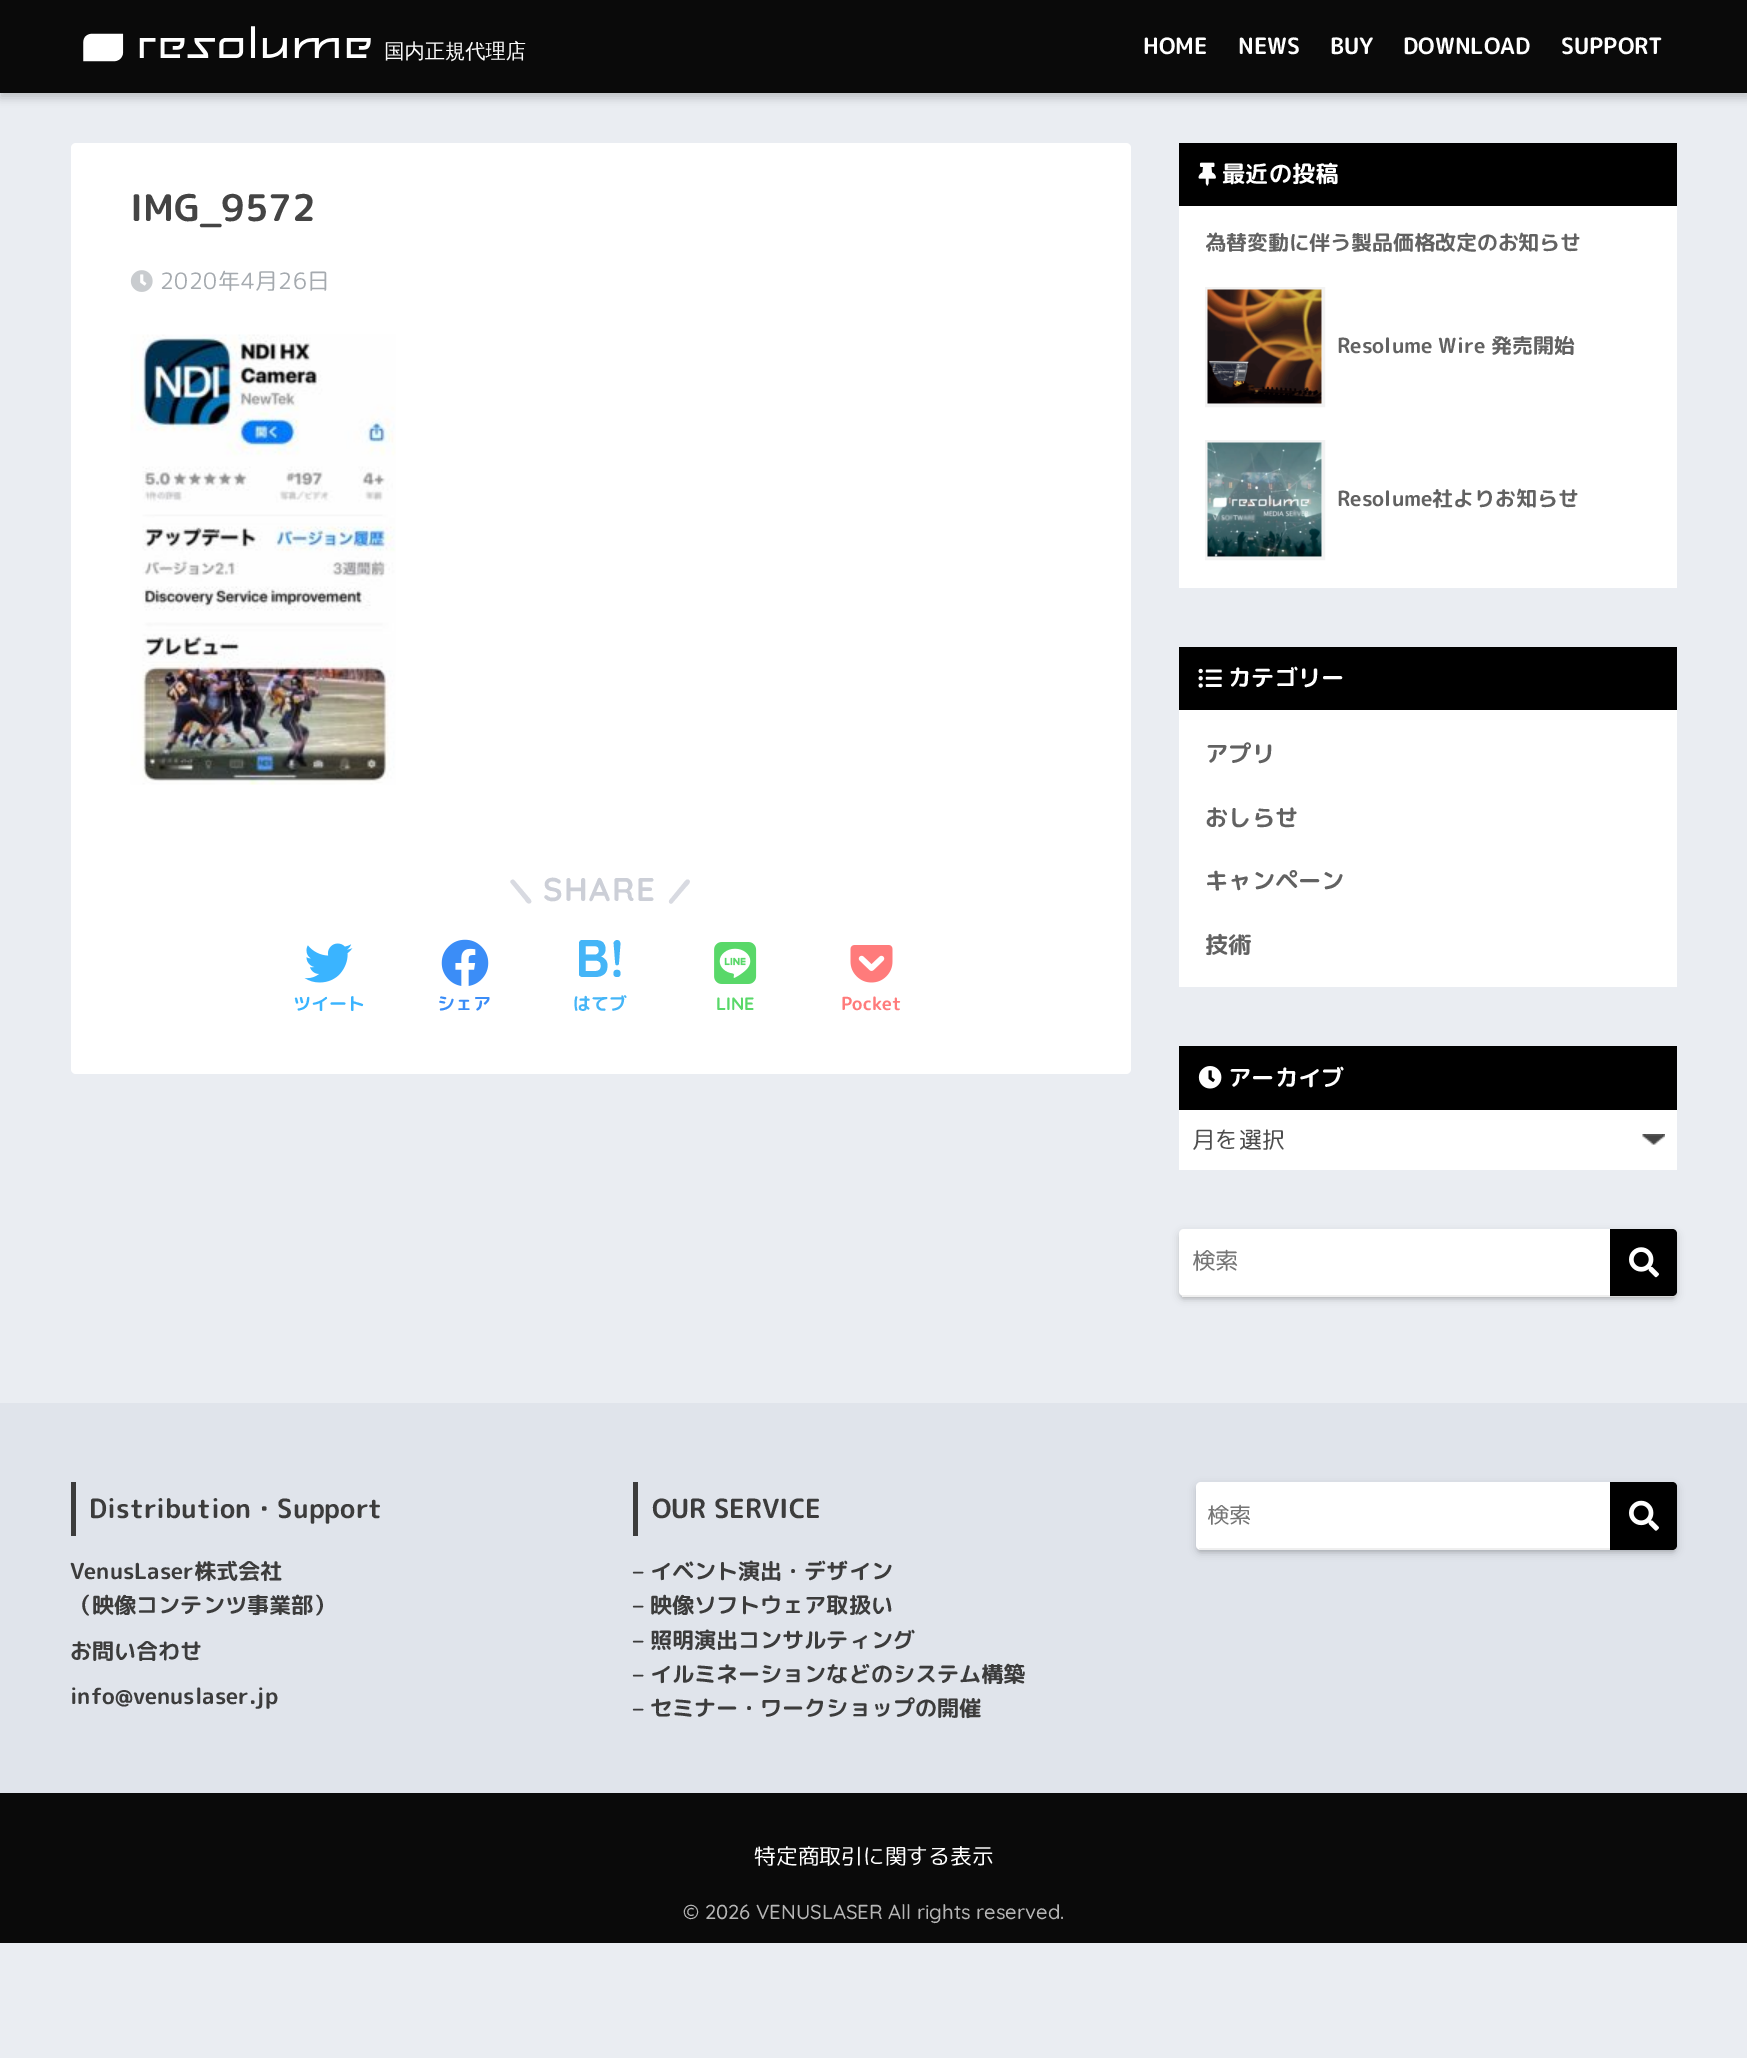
%!PS-Adobe-3.0
%%BoundingBox: 0 0 1747 2058
%%LanguageLevel: 3
%%Pages: 1
%%EndComments
%%BeginProlog
/setalpha { dup .setfillconstantalpha .setstrokeconstantalpha } def
/rrect { 5 dict begin { /r /h /w /y /x } { exch def } forall
  x r add y moveto x w add y 2 copy h add r arct x w add y h add x 1 index r arct
  x y h add x y r arct x y 2 copy exch w add exch r arct closepath end } def
/softshadow { 12 dict begin { /a /b /q /h /w /y /x } { exch def } forall gsave /was 0 def
  9 -2 -9 { dup b mul 4 div /e exch def 1 sub .425 mul 2.718 exch exp 1 add a .99 .min exch div /now exch def
    1 1 now sub 1 was sub div sub setalpha /was now def
    w h .min e 2 mul add 0 gt { x e sub y e sub w e 2 mul add h e 2 mul add
      q e add b .6 mul add w h .min 2 div e add .min 0 .max rrect fill } if } for grestore end } def
/drawimage { 5 dict begin { /h /w /y /x /name } { exch def } forall
  gsave x y translate w h scale
  w h 8 [w 0 0 h 0 0] name (r) file false 3 colorimage grestore end } def
%%EndProlog
%%BeginSetup
<< /PageSize [1747 2058] /PageUsesTransparency true >> setpagedevice
%%EndSetup
%%Page: 1 1
0 .pushpdf14devicefilter
0 2058 translate 1 -1 scale
4 setmiterlimit
0.918 0.929 0.949 setrgbcolor
0 0 1747 2058 rectfill
0 setgray
0 5 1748 93 0 4.5 0.18 softshadow
0.039 setgray
0 0 1747 93 rectfill
(images/1.raw) 83 26 443 36 drawimage
1 setgray
71 143 1060 931 5 rrect fill
(images/2.raw) 130 270 23 22 drawimage
(images/3.raw) 130 334 266 451 drawimage
0.847 0.855 0.882 setrgbcolor
newpath 514.5 880.5 moveto 528 896.5 lineto 529 898 533 901 530.5 903 curveto 528 905 525.5 901 524.5 899.5 curveto 510.5 882.5 lineto 509.5 880.5 513 878.5 514.5 880.5 curveto closepath fill
newpath 669.5 900 moveto 683 883.5 lineto 684 882.5 686.5 878 689 880 curveto 691.5 882 687.5 885.5 686.5 886.5 curveto 672 903.5 lineto 670 904.5 668 902 669.5 900 curveto closepath fill
(images/4.raw) 304 943 49 40 drawimage
(images/5.raw) 441 939 48 47 drawimage
(images/6.raw) 714 942 43 42 drawimage
(images/7.raw) 850 945 43 38 drawimage
1 setgray
1179 206 498 382 rectfill
0 setgray
1179 143 498 63 rectfill
(images/8.raw) 1198 162 18 24 drawimage
0.953 setgray
3 setlinewidth
1206.5 288.5 117 117 rectstroke
(images/9.raw) 1207 289 115 115 drawimage
1206.5 441.5 117 117 rectstroke
(images/10.raw) 1207 442 115 115 drawimage
1 setgray
1179 710 498 277 rectfill
0 setgray
1179 647 498 63 rectfill
(images/11.raw) 1198 668 24 20 drawimage
1 setgray
1179 1110 498 60 rectfill
0 setgray
1179 1046 498 64 rectfill
(images/12.raw) 1198 1066 24 23 drawimage
(images/13.raw) 1642 1134 23 11 drawimage
1182 1236 492 62 1.5 2 0.15 softshadow
1179 1232 498 67 5 4 0.15 softshadow
1 setgray
1179 1229 498 67 5 rrect fill
0.937 setgray
1182 1295 494 2 rectfill
0 setgray
newpath 1610 1229 moveto 1672 1229 lineto 1675 1229 1677 1231 1677 1234 curveto 1677 1291 lineto 1677 1294 1675 1296 1672 1296 curveto 1610 1296 lineto closepath fill
0.1 setalpha
1610 1295 66 2 rectfill
1 setalpha
(images/14.raw) 1629 1247 30 31 drawimage
0.878 0.894 0.922 setrgbcolor
0 1403 1747 390 rectfill
0.235 setgray
71 1482 5 54 rectfill
633 1482 5 54 rectfill
0 setgray
1199 1490 475 61 1.5 2 0.15 softshadow
1196 1485 481 68 5 4 0.15 softshadow
1 setgray
1196 1482 481 68 5 rrect fill
0.937 setgray
1199 1548 477 2 rectfill
0 setgray
newpath 1610 1482 moveto 1672 1482 lineto 1675 1482 1677 1484 1677 1487 curveto 1677 1545 lineto 1677 1548 1675 1550 1672 1550 curveto 1610 1550 lineto closepath fill
0.1 setalpha
1673 1548 3 2 rectfill
1 setalpha
(images/15.raw) 1629 1500 30 31 drawimage
0.039 setgray
0 1793 1747 150 rectfill
/RoundedMplus1cBold-Bold [22.5 0 0 -22.5 0 0] selectfont
1 setgray
1143 54 moveto (HOME) show
1238 54 moveto (NEWS) show
1330 54 moveto (BUY) show
1403 54 moveto (DOWNLOAD) show
1561 54 moveto (SUPPORT) show
/RoundedMplus1cBold-Bold [36.75 0 0 -36.75 0 0] selectfont
0.267 setgray
130 221 moveto (IMG_9572) show
/RoundedMplus1c-Regular [22.5 0 0 -22.5 0 0] selectfont
0.647 0.667 0.686 setrgbcolor
160 289 moveto 0.5 0 (2020年4月26日) ashow
/Quicksand-Bold [33 0 0 -33 0 0] selectfont
0.8 0.812 0.843 setrgbcolor
543 901 moveto 1.5 0 (SHARE) ashow
/RoundedMplus1cBold-Bold [18 0 0 -18 0 0] selectfont
0.227 0.706 1 setrgbcolor
293 1010 moveto (ツイート) show
0.231 0.553 0.969 setrgbcolor
437 1010 moveto (シェア) show
/Quicksand-Bold [53 0 0 -53 0 0] selectfont
0.271 0.71 0.969 setrgbcolor
575 977 moveto (B!) show
/RoundedMplus1cBold-Bold [18 0 0 -18 0 0] selectfont
573 1010 moveto (はてブ) show
/Quicksand-Bold [18 0 0 -18 0 0] selectfont
0.349 0.847 0.412 setrgbcolor
716 1010 moveto (LINE) show
/RoundedMplus1cBold-Bold [18 0 0 -18 0 0] selectfont
1 0.482 0.482 setrgbcolor
841 1010 moveto (Pocket) show
/RoundedMplus1cBold-Bold [23.25 0 0 -23.25 0 0] selectfont
1 setgray
1222 182 moveto (最近の投稿) show
/RoundedMplus1cBold-Bold [20.9 0 0 -20.9 0 0] selectfont
0.384 setgray
1205 250 moveto (為替変動に伴う製品価格改定のお知らせ) show
1337 353 moveto (Resolume Wire 発売開始) show
1337 506 moveto (Resolume社よりお知らせ) show
/RoundedMplus1cBold-Bold [23.25 0 0 -23.25 0 0] selectfont
1 setgray
1228 686 moveto (カテゴリー) show
0.384 setgray
1205 762 moveto (アプリ) show
1205 826 moveto (おしらせ) show
1205 889 moveto (キャンペーン) show
1205 953 moveto (技術) show
1 setgray
1228 1086 moveto (アーカイブ) show
/RoundedMplus1c-Regular [23.25 0 0 -23.25 0 0] selectfont
0.302 setgray
1192 1148 moveto (月を選択) show
0.459 setgray
1192 1269 moveto (検索) show
/RoundedMplus1cBold-Bold [26.5 0 0 -26.5 0 0] selectfont
0.235 setgray
89 1518 moveto (Distribution・Support) show
/RoundedMplus1cBold-Bold [22.1 0 0 -22.1 0 0] selectfont
70 1579 moveto (VenusLaser株式会社) show
70 1613 moveto (（映像コンテンツ事業部）) show
70 1659 moveto (お問い合わせ) show
70 1704 moveto (info@venuslaser.jp) show
/RoundedMplus1cBold-Bold [26.5 0 0 -26.5 0 0] selectfont
652 1518 moveto (OUR SERVICE) show
/RoundedMplus1cBold-Bold [22.1 0 0 -22.1 0 0] selectfont
633 1579 moveto (– イベント演出・デザイン) show
633 1613 moveto (– 映像ソフトウェア取扱い) show
633 1648 moveto (– 照明演出コンサルティング) show
633 1682 moveto (– イルミネーションなどのシステム構築) show
633 1716 moveto (– セミナー・ワークショップの開催) show
/RoundedMplus1c-Regular [22.1 0 0 -22.1 0 0] selectfont
0.459 setgray
1207 1523 moveto (検索) show
/RoundedMplus1c-Regular [21.75 0 0 -21.75 0 0] selectfont
1 setgray
754 1864 moveto (特定商取引に関する表示) show
/Quicksand-Medium [20.25 0 0 -20.25 0 0] selectfont
0.714 setgray
683 1919 moveto (© 2026 VENUSLASER All rights reserved.) show
.poppdf14devicefilter showpage
%%EOF
